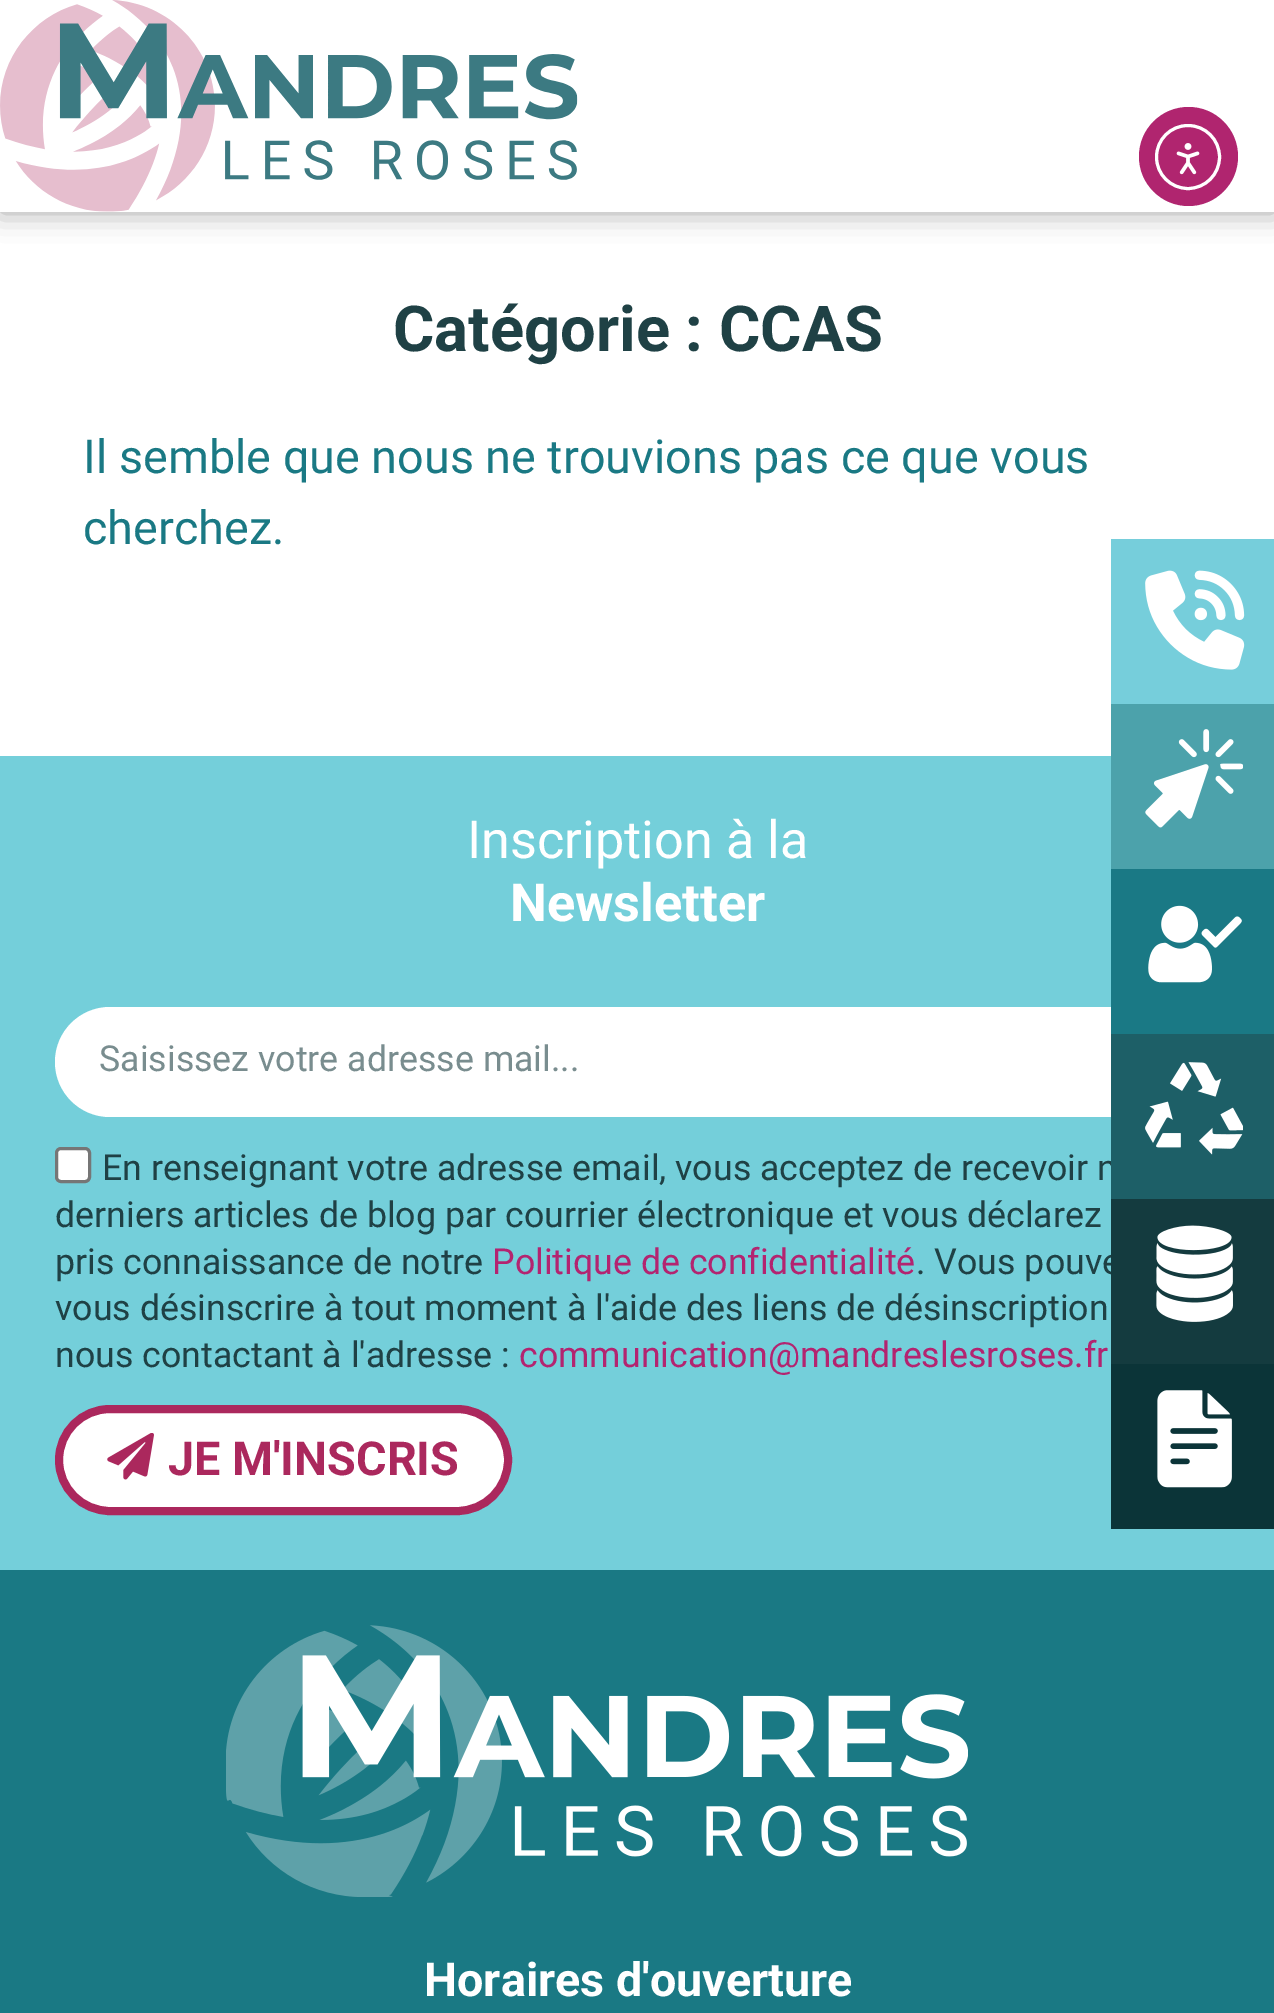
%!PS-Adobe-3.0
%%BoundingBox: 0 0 1274 2013
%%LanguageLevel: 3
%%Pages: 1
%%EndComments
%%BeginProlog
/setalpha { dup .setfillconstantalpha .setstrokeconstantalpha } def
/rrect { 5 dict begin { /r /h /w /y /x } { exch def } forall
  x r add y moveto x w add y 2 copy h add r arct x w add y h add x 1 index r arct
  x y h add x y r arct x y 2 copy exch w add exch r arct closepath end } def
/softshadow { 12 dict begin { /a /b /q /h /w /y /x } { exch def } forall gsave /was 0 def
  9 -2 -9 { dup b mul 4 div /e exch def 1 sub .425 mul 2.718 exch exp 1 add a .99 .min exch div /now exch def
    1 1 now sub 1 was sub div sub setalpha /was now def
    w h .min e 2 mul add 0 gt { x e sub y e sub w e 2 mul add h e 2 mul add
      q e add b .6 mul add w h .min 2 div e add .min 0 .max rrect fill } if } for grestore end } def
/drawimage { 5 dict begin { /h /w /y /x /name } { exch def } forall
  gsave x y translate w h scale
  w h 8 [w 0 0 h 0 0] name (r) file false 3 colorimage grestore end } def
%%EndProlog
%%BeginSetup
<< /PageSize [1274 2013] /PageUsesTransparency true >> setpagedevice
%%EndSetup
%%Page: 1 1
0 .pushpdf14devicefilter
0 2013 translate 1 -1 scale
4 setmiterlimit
1 setgray
0 0 1274 2013 rectfill
0 setgray
0 0 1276 212 0 14 0.35 softshadow
1 setgray
0 0 1274 212 rectfill
(images/1.raw) 0 0 578 212 drawimage
0.69 0.145 0.435 setrgbcolor
newpath 1188.5 156.5 49.5 0 360 arc closepath fill
1 setgray
3 setlinewidth
newpath 1188 157 31.5 0 360 arc closepath stroke
(images/2.raw) 1176 143 24 32 drawimage
0.455 0.812 0.855 setrgbcolor
0 756 1274 814 rectfill
1 setgray
55 1007 1166 110 55 rrect fill
56.5 1148.5 33 33 4.5 rrect gsave fill grestore
0.463 setgray
stroke
1 setgray
59 1409 449 102 51 rrect gsave fill grestore
0.671 0.157 0.365 setrgbcolor
8 setlinewidth
stroke
(images/3.raw) 107 1433 47 47 drawimage
0.102 0.475 0.518 setrgbcolor
0 1570 1274 443 rectfill
(images/4.raw) 226 1625 742 272 drawimage
0.463 0.808 0.859 setrgbcolor
1111 539 163 165 rectfill
(images/5.raw) 1145 570 100 100 drawimage
0.298 0.635 0.671 setrgbcolor
1111 704 163 165 rectfill
(images/6.raw) 1145 729 98 99 drawimage
0.102 0.475 0.522 setrgbcolor
1111 869 163 165 rectfill
(images/7.raw) 1148 905 94 78 drawimage
0.043 0.204 0.22 setrgbcolor
1111 1364 163 165 rectfill
(images/10.raw) 1157 1390 75 98 drawimage
/Roboto-Bold [63.25 0 0 -63.25 0 0] selectfont
0.122 0.255 0.271 setrgbcolor
393 351 moveto (Catégorie : CCAS) show
/Roboto-Regular [46.75 0 0 -46.75 0 0] selectfont
0.102 0.475 0.518 setrgbcolor
83 473 moveto (Il semble que nous ne trouvions pas ce que vous) show
83 544 moveto (cherchez.) show
/Roboto-Regular [52.25 0 0 -52.25 0 0] selectfont
1 setgray
467 858 moveto (Inscription à la) show
/Roboto-Bold [52.25 0 0 -52.25 0 0] selectfont
510 921 moveto (Newsletter) show
/Roboto-Regular [35.75 0 0 -35.75 0 0] selectfont
0.475 0.553 0.561 setrgbcolor
99 1071 moveto (Saisissez votre adresse mail...) show
0.122 0.255 0.271 setrgbcolor
102 1180 moveto (En renseignant votre adresse email, vous acceptez de recevoir n) show
55 1227 moveto (derniers articles de blog par courrier électronique et vous déclarez) show
55 1274 moveto (pris connaissance de notre) show
0.702 0.141 0.439 setrgbcolor
492 1274 moveto (Politique de confidentialité) show
0.122 0.255 0.271 setrgbcolor
916 1274 moveto (. Vous pouve) show
55 1320 moveto (vous désinscrire à tout moment à l'aide des liens de désinscription) show
55 1367 moveto (nous contactant à l'adresse :) show
0.702 0.141 0.439 setrgbcolor
519 1367 moveto (communication@mandreslesroses.fr) show
/Roboto-Bold [46.75 0 0 -46.75 0 0] selectfont
0.671 0.157 0.365 setrgbcolor
168 1475 moveto (JE M'INSCRIS) show
1 setgray
424 1996 moveto (Horaires d'ouverture) show
0.114 0.373 0.404 setrgbcolor
1111 1034 163 165 rectfill
(images/8.raw) 1145 1062 98 93 drawimage
0.078 0.231 0.247 setrgbcolor
1111 1199 163 165 rectfill
(images/9.raw) 1156 1225 77 97 drawimage
.poppdf14devicefilter showpage
%%EOF
